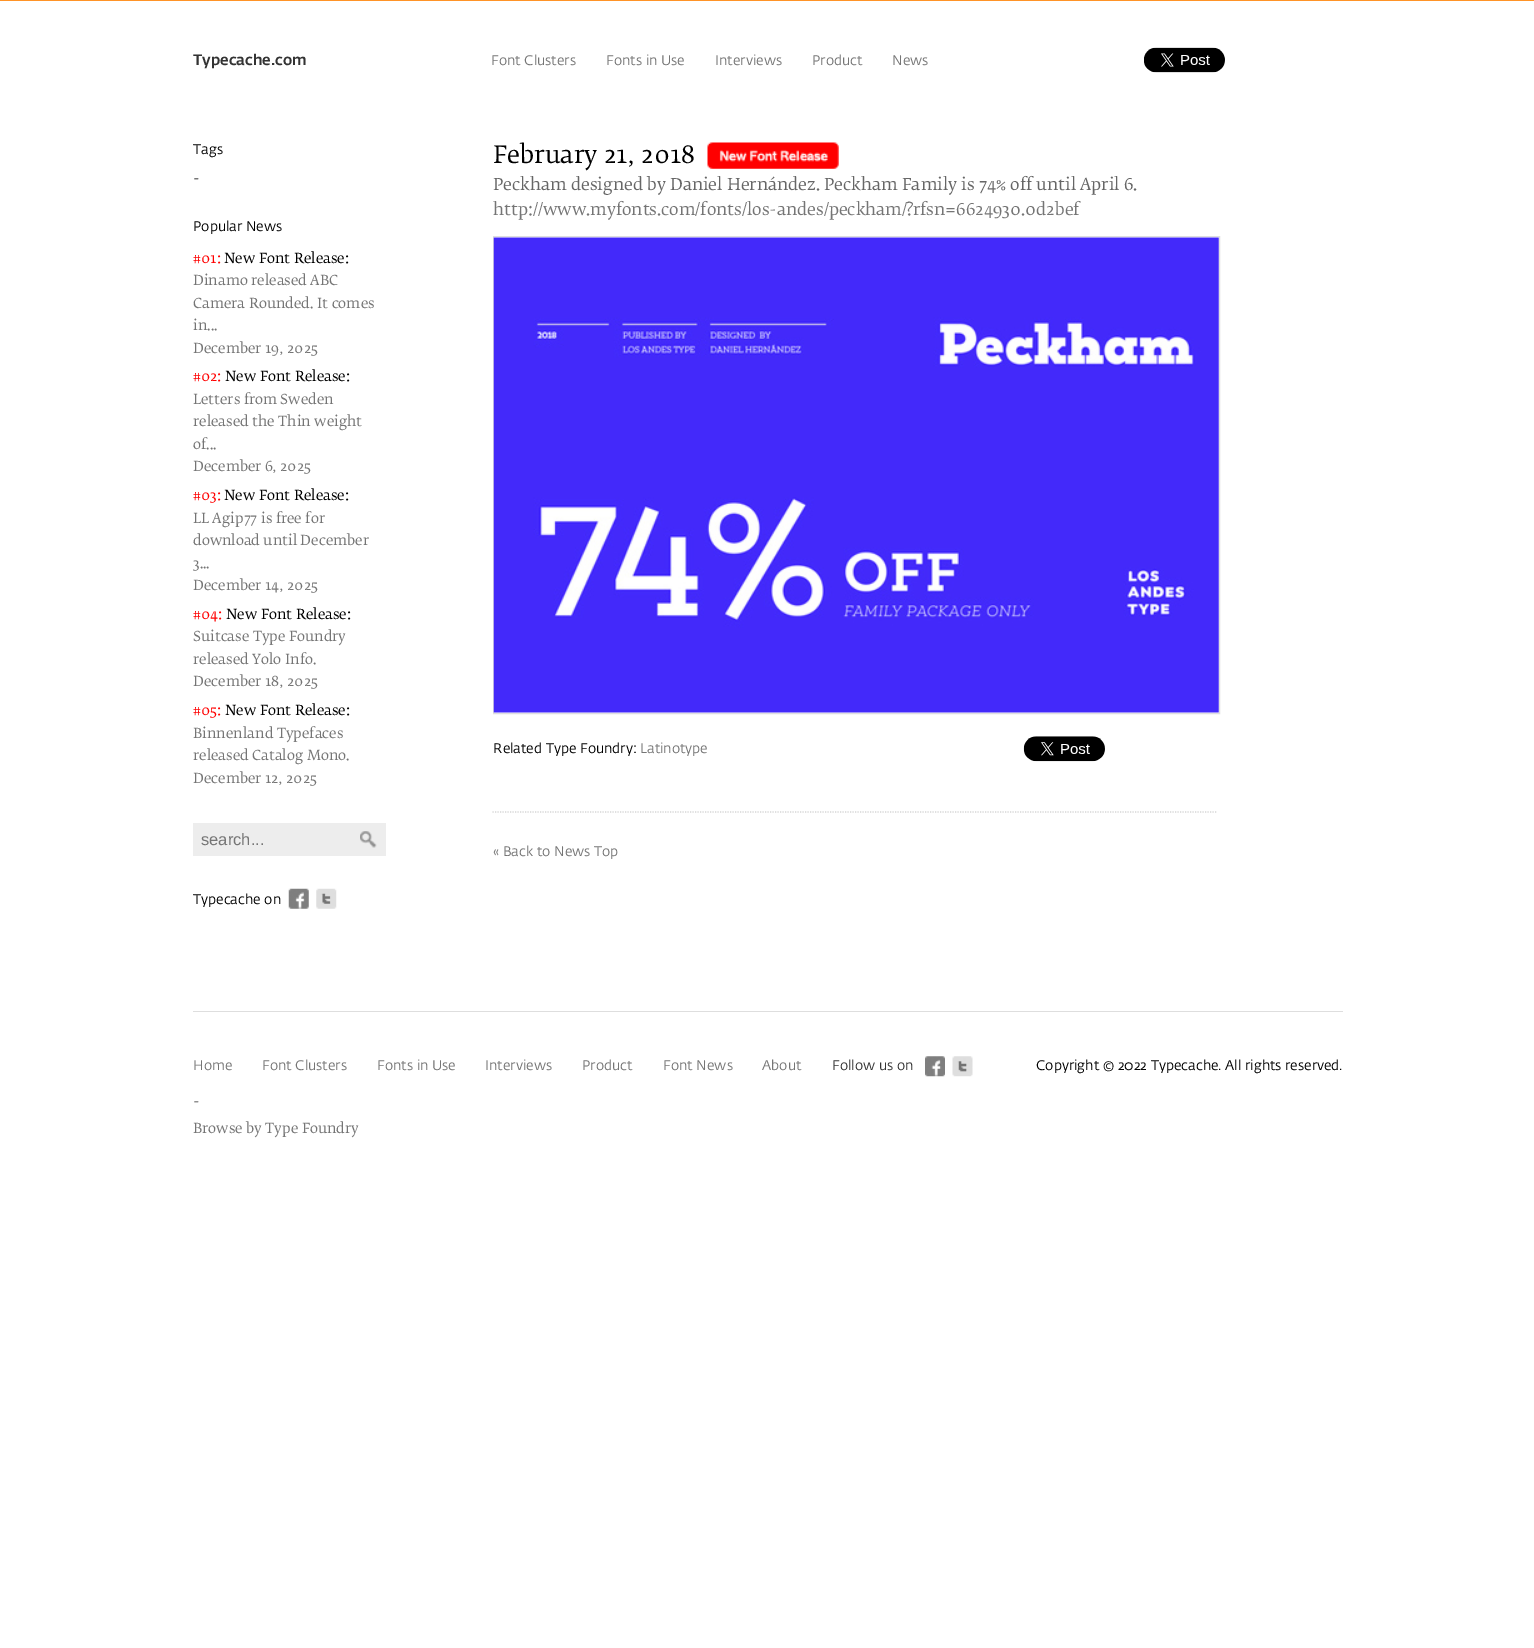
%!PS-Adobe-3.0
%%BoundingBox: 0 0 1534 1648
%%LanguageLevel: 3
%%Pages: 1
%%EndComments
%%BeginProlog
/drawimage { 5 dict begin { /h /w /y /x /name } { exch def } forall
  gsave x y translate w h scale
  w h 8 [w 0 0 h 0 0] name (r) file false 3 colorimage grestore end } def
%%EndProlog
%%BeginSetup
<< /PageSize [1534 1648] >> setpagedevice
%%EndSetup
%%Page: 1 1
0 1648 translate 1 -1 scale
4 setmiterlimit
1 setgray
0 0 1534 1648 rectfill
1 0.576 0.153 setrgbcolor
0 0 1534 1 rectfill
(images/1.raw) 1144 47 81 26 drawimage
0.929 setgray
193 823 193 33 rectfill
(images/2.raw) 360 831 17 17 drawimage
(images/3.raw) 288 888 21 21 drawimage
(images/4.raw) 316 888 21 21 drawimage
(images/5.raw) 707 142 132 27 drawimage
0.871 setgray
493.5 236.5 726 477 rectstroke
(images/6.raw) 493 237 726 476 drawimage
(images/7.raw) 1023 736 82 26 drawimage
0.839 setgray
1.2 setlinewidth
[1.25 1.25] 0 setdash
newpath 492.5 812 moveto 1217.5 812 lineto stroke
0.871 setgray
193 1011 1150 1 rectfill
(images/8.raw) 925 1056 20 21 drawimage
(images/9.raw) 952 1056 21 21 drawimage
/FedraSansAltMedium-Medium [15 0 0 -15 0 0] selectfont
0.2 setgray
193 65 moveto (Typecache.com) show
/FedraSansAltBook-Regular [13.75 0 0 -13.75 0 0] selectfont
0.459 setgray
491 65 moveto (Font Clusters) show
606 65 moveto (Fonts in Use) show
715 65 moveto (Interviews) show
812 65 moveto (Product) show
892 65 moveto (News) show
0 setgray
193 154 moveto (Tags) show
/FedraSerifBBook-Light [13.75 0 0 -13.75 0 0] selectfont
193 183 moveto (-) show
/FedraSansAltBook-Regular [13.75 0 0 -13.75 0 0] selectfont
193 231 moveto (Popular News) show
/FedraSerifBBook-Light [13.75 0 0 -13.75 0 0] selectfont
1 0 0 setrgbcolor
193 263 moveto (#01:) show
0 setgray
224 263 moveto (New Font Release:) show
0.459 setgray
193 285 moveto (Dinamo released ABC) show
193 308 moveto (Camera Rounded. It comes) show
193 330 moveto (in...) show
193 353 moveto (December 19) show
/LiberationSerif-Regular [13.75 0 0 -13.75 0 0] selectfont
279 353 moveto (‚) show
/FedraSerifBBook-Light [13.75 0 0 -13.75 0 0] selectfont
287 353 moveto (2025) show
1 0 0 setrgbcolor
193 381 moveto (#02:) show
0 setgray
225 381 moveto (New Font Release:) show
0.459 setgray
193 404 moveto (Letters from Sweden) show
193 426 moveto (released the Thin weight) show
193 449 moveto (of...) show
193 471 moveto (December 6) show
/LiberationSerif-Regular [13.75 0 0 -13.75 0 0] selectfont
272 471 moveto (‚) show
/FedraSerifBBook-Light [13.75 0 0 -13.75 0 0] selectfont
280 471 moveto (2025) show
1 0 0 setrgbcolor
193 500 moveto (#03:) show
0 setgray
224 500 moveto (New Font Release:) show
0.459 setgray
193 523 moveto (LL Agip77 is free for) show
193 545 moveto (download until December) show
193 568 moveto (3...) show
193 590 moveto (December 14) show
/LiberationSerif-Regular [13.75 0 0 -13.75 0 0] selectfont
279 590 moveto (‚) show
/FedraSerifBBook-Light [13.75 0 0 -13.75 0 0] selectfont
287 590 moveto (2025) show
1 0 0 setrgbcolor
193 619 moveto (#04:) show
0 setgray
226 619 moveto (New Font Release:) show
0.459 setgray
193 641 moveto (Suitcase Type Foundry) show
193 664 moveto (released Yolo Info.) show
193 686 moveto (December 18) show
/LiberationSerif-Regular [13.75 0 0 -13.75 0 0] selectfont
279 686 moveto (‚) show
/FedraSerifBBook-Light [13.75 0 0 -13.75 0 0] selectfont
287 686 moveto (2025) show
1 0 0 setrgbcolor
193 715 moveto (#05:) show
0 setgray
225 715 moveto (New Font Release:) show
0.459 setgray
193 738 moveto (Binnenland Typefaces) show
193 760 moveto (released Catalog Mono.) show
193 783 moveto (December 12) show
/LiberationSerif-Regular [13.75 0 0 -13.75 0 0] selectfont
278 783 moveto (‚) show
/FedraSerifBBook-Light [13.75 0 0 -13.75 0 0] selectfont
286 783 moveto (2025) show
/LiberationSans-Regular [16.5 0 0 -16.5 0 0] selectfont
201 845 moveto (search...) show
/FedraSansAltBook-Regular [13.75 0 0 -13.75 0 0] selectfont
0 setgray
193 904 moveto (Typecache on) show
/FedraSerifBBook-Light [23.75 0 0 -23.75 0 0] selectfont
493 163 moveto (February 21) show
/LiberationSerif-Regular [23.75 0 0 -23.75 0 0] selectfont
627 163 moveto (‚) show
/FedraSerifBBook-Light [23.75 0 0 -23.75 0 0] selectfont
641 163 moveto (2018) show
/FedraSerifBBook-Light [16.25 0 0 -16.25 0 0] selectfont
0.4 setgray
493 190 moveto (Peckham designed by Daniel Hernández. Peckham Family is 74% off until April 6.) show
0.459 setgray
493 215 moveto (http://www.myfonts.com/fonts/los-andes/peckham/?rfsn=6624930.0d2bef) show
/FedraSansAltBook-Regular [13.75 0 0 -13.75 0 0] selectfont
0 setgray
493 753 moveto (Related Type Foundry:) show
0.459 setgray
640 753 moveto (Latinotype) show
493 856 moveto (« Back to News Top) show
193 1070 moveto (Home) show
262 1070 moveto (Font Clusters) show
377 1070 moveto (Fonts in Use) show
485 1070 moveto (Interviews) show
582 1070 moveto (Product) show
663 1070 moveto (Font News) show
762 1070 moveto (About) show
0.2 setgray
832 1070 moveto (Follow us on) show
0 setgray
1036 1070 moveto (Copyright © 2022 Typecache. All rights reserved.) show
/FedraSerifBBook-Light [13.75 0 0 -13.75 0 0] selectfont
0.2 setgray
193 1106 moveto (-) show
0.459 setgray
193 1133 moveto (Browse by Type Foundry) show
showpage
%%EOF
